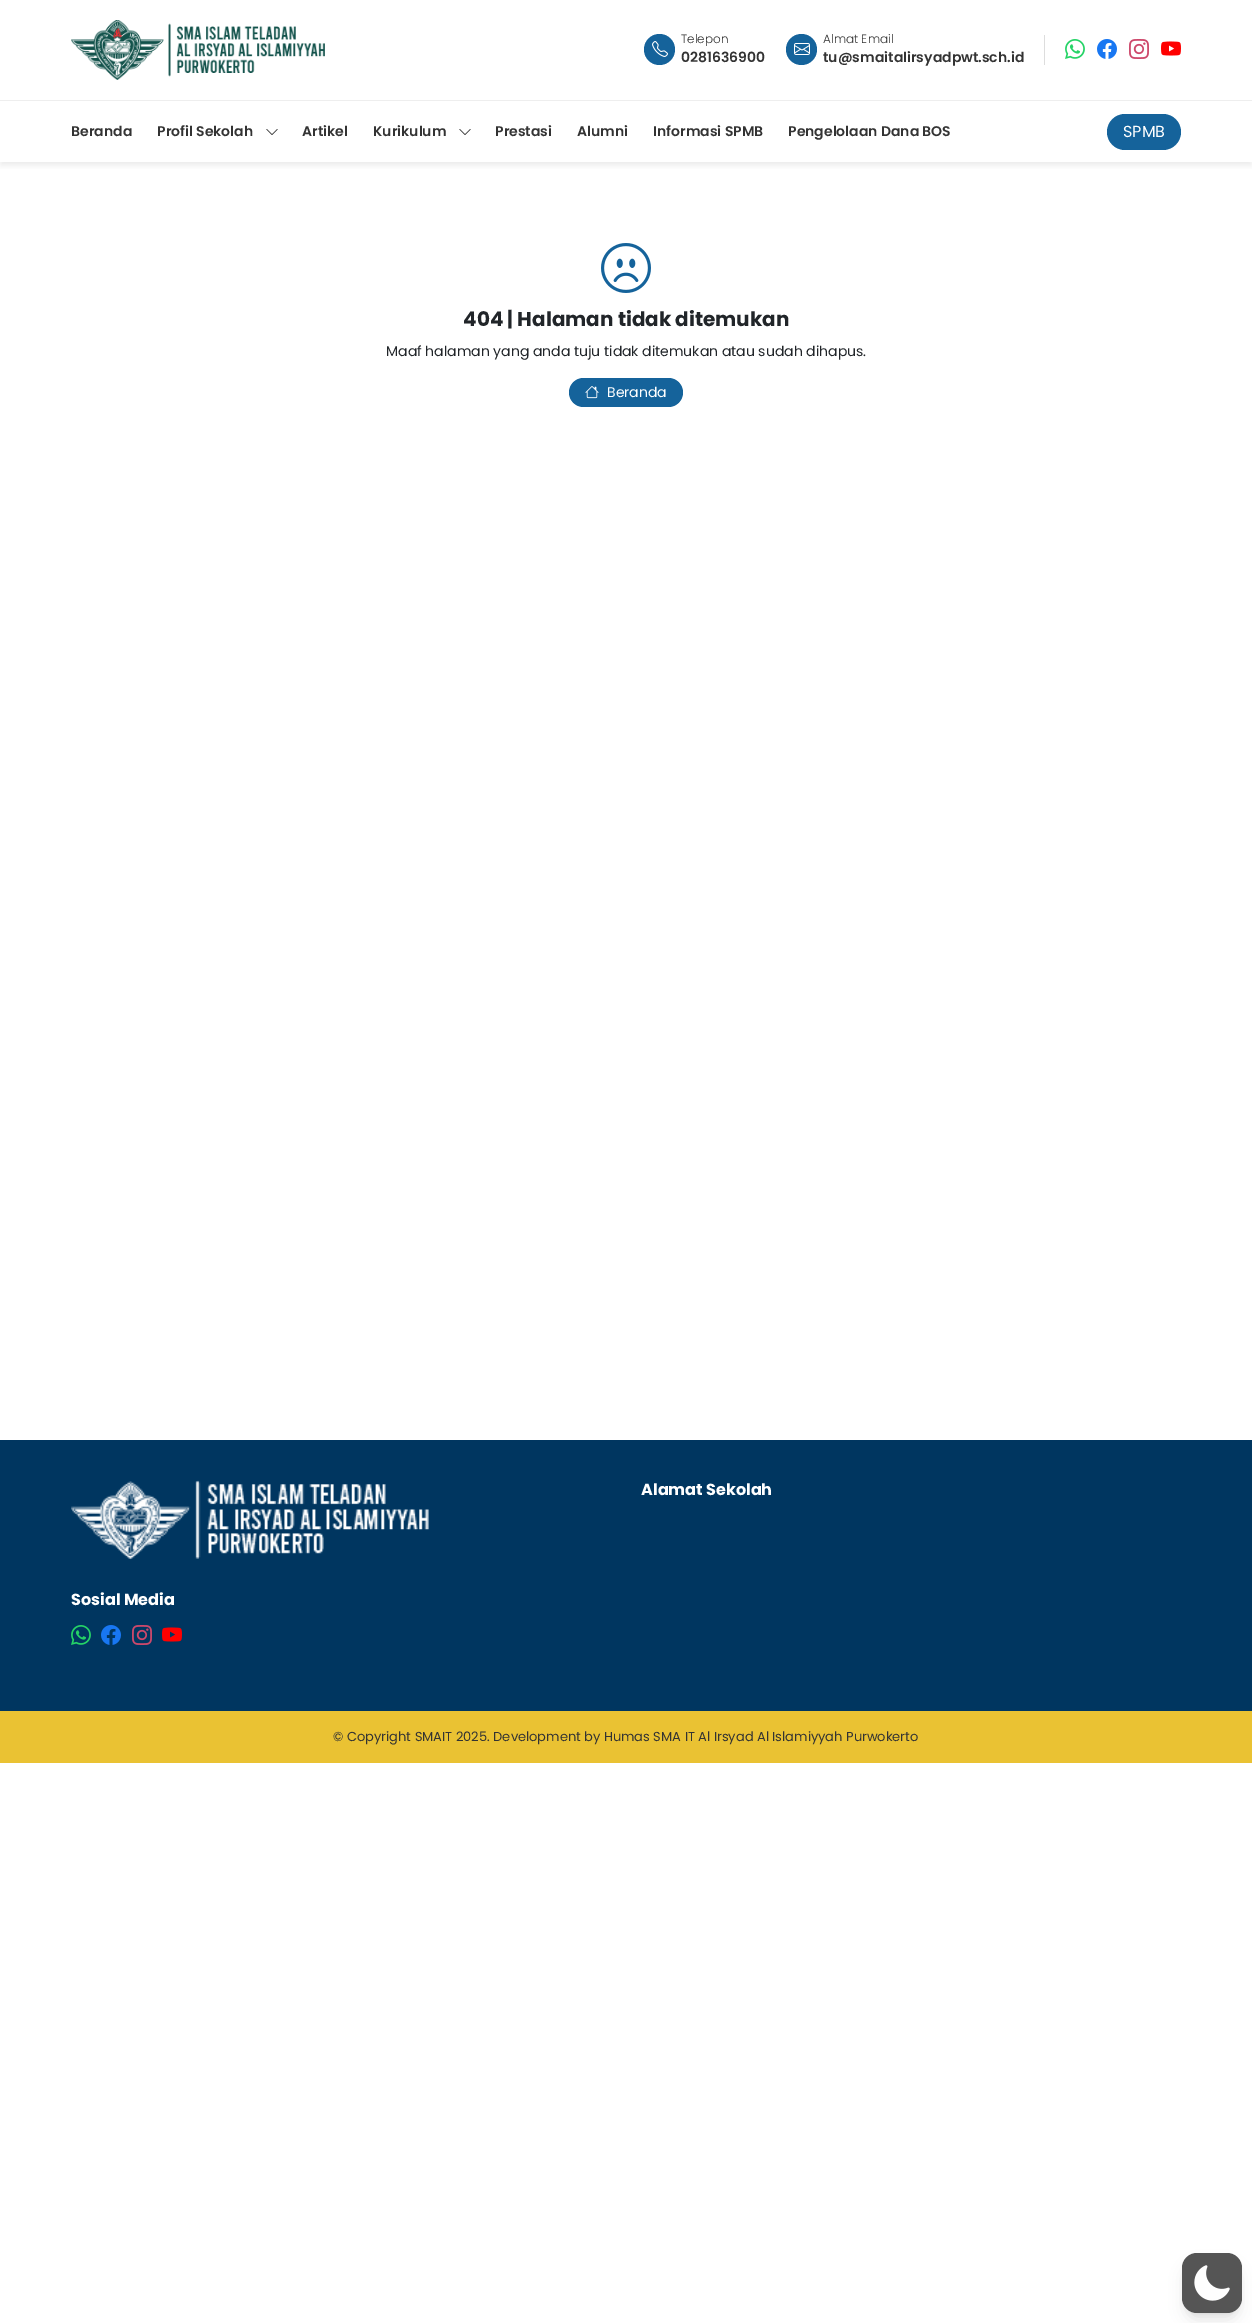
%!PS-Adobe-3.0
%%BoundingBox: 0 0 1252 2323
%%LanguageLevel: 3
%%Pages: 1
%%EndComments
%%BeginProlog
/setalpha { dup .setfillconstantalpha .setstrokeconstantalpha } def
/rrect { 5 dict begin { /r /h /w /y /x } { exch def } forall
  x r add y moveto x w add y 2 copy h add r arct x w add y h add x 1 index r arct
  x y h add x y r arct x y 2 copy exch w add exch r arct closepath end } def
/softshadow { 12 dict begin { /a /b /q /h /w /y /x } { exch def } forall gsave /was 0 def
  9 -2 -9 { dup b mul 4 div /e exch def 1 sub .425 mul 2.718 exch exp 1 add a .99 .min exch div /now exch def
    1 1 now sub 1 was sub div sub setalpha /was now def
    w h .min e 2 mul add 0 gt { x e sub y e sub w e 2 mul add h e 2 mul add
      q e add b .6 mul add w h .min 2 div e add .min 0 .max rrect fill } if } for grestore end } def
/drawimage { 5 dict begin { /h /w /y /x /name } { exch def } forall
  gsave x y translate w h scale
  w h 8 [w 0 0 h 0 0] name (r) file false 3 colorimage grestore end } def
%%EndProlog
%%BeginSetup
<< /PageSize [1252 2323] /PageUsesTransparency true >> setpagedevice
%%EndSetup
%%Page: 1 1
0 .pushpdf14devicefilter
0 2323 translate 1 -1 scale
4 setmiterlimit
1 setgray
0 0 1252 2323 rectfill
0.933 setgray
0 100 1252 1 rectfill
(images/1.raw) 71 20 254 60 drawimage
0.082 0.388 0.608 setrgbcolor
newpath 659.5 49.5 15.5 0 360 arc closepath fill
(images/2.raw) 652 41 16 16 drawimage
newpath 801.5 49.5 15.5 0 360 arc closepath fill
(images/3.raw) 794 43 16 12 drawimage
0.867 setgray
1044 35 1 30 rectfill
(images/4.raw) 1065 39 20 20 drawimage
(images/5.raw) 1097 39 20 20 drawimage
(images/6.raw) 1129 39 20 20 drawimage
(images/7.raw) 1161 41 20 15 drawimage
gsave
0 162 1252 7 rectclip
0.729 setgray
1 106 1250 59 0 3 0.3 softshadow
grestore
(images/8.raw) 266 129 12 6 drawimage
(images/8.raw) 459 129 12 6 drawimage
0.082 0.388 0.608 setrgbcolor
1107 114 74 36 18 rrect fill
(images/9.raw) 601 243 50 50 drawimage
569 378 114 29 14.5 rrect fill
(images/10.raw) 585 386 14 13 drawimage
0 0.212 0.376 setrgbcolor
0 1440 1252 271 rectfill
(images/11.raw) 71 1480 358 80 drawimage
(images/12.raw) 71 1625 20 20 drawimage
(images/13.raw) 101 1625 20 20 drawimage
(images/14.raw) 132 1625 20 20 drawimage
(images/15.raw) 162 1627 20 15 drawimage
0.918 0.761 0.2 setrgbcolor
0 1711 1252 52 rectfill
0 setgray
1186 2261 52 52 11 3 0.1 softshadow
1185 2266 54 54 12 7.5 0.1 softshadow
0.333 setgray
1182 2253 60 60 15 rrect fill
(images/16.raw) 1194 2265 36 36 drawimage
/Poppins-Light [12 0 0 -12 0 0] selectfont
0.2 setgray
681 43 moveto (Telepon) show
/Poppins-SemiBold [14 0 0 -14 0 0] selectfont
681 62 moveto (0281636900) show
/Poppins-Light [12 0 0 -12 0 0] selectfont
823 43 moveto (Almat Email) show
/Poppins-SemiBold [14 0 0 -14 0 0] selectfont
823 62 moveto (tu@smaitalirsyadpwt.sch.id) show
71 136 moveto (Beranda) show
157 136 moveto (Profil Sekolah) show
302 136 moveto (Artikel) show
373 136 moveto (Kurikulum) show
495 136 moveto (Prestasi) show
577 136 moveto (Alumni) show
653 136 moveto (Informasi SPMB) show
788 136 moveto (Pengelolaan Dana BOS) show
/Poppins-Regular [16 0 0 -16 0 0] selectfont
1 setgray
1123 137 moveto (SPMB) show
/Poppins-Bold [20 0 0 -20 0 0] selectfont
0.129 0.145 0.161 setrgbcolor
463 326 moveto (404 | Halaman tidak ditemukan) show
/Poppins-Regular [14 0 0 -14 0 0] selectfont
386 356 moveto (Maaf halaman yang anda tuju tidak ditemukan atau sudah dihapus.) show
1 setgray
607 397 moveto (Beranda) show
/Poppins-Bold [16 0 0 -16 0 0] selectfont
641 1495 moveto (Alamat Sekolah) show
71 1605 moveto (Sosial Media) show
/Poppins-Regular [13 0 0 -13 0 0] selectfont
0.2 setgray
333 1741 moveto (© Copyright SMAIT 2025. Development by Humas SMA IT Al Irsyad Al Islamiyyah Purwokerto) show
.poppdf14devicefilter showpage
%%EOF
